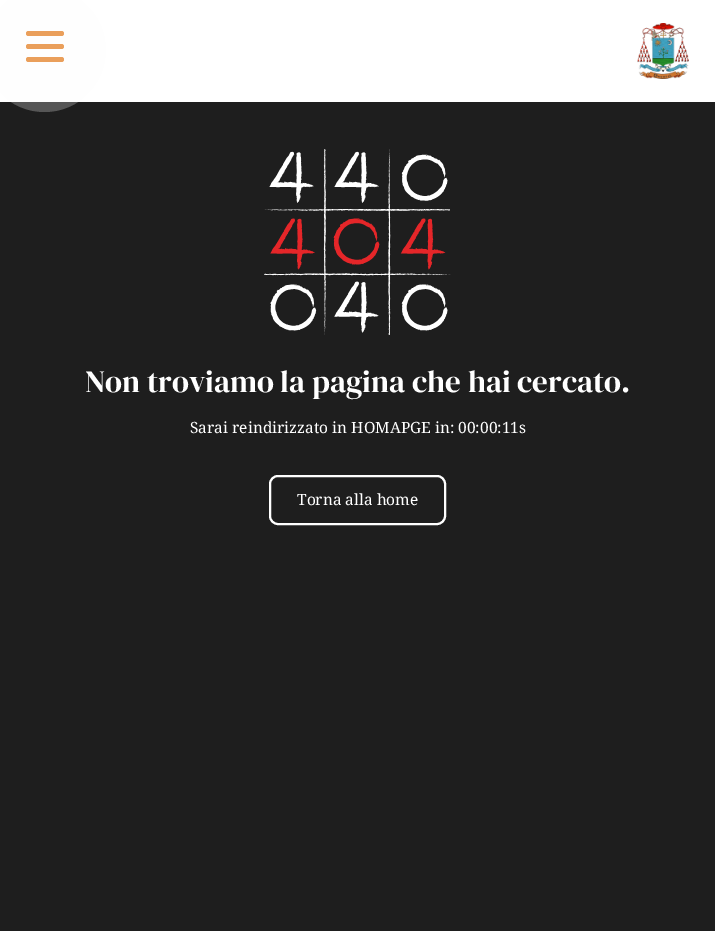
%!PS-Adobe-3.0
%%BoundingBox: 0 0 715 931
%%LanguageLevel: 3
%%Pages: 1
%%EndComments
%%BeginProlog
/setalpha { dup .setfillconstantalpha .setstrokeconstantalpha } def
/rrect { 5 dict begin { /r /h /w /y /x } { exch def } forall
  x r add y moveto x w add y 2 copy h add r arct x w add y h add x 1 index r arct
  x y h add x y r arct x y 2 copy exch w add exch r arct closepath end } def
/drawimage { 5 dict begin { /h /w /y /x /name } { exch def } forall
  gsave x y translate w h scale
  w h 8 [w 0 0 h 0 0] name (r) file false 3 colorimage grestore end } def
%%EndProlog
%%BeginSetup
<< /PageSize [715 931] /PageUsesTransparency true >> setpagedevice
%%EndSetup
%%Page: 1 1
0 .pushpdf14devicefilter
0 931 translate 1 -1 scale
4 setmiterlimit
1 setgray
0 0 715 931 rectfill
0.118 setgray
0 102 715 829 rectfill
0.25 setalpha
0.988 setgray
-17 -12 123 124 61.5 rrect fill
1 setalpha
0.918 0.624 0.357 setrgbcolor
26 31 38 5 2.5 rrect fill
26 44 38 5 2.5 rrect fill
26 57 38 5 2.5 rrect fill
(images/1.raw) 637 23 52 56 drawimage
(images/2.raw) 264 149 187 186 drawimage
1 setgray
2 setlinewidth
270 476 175 48 8 rrect stroke
/DMSerifDisplay-Regular [31 0 0 -31 0 0] selectfont
85 392 moveto (Non troviamo la pagina che hai cercato.) show
/NotoSerif-Regular [15.5 0 0 -15.5 0 0] selectfont
190 433 moveto (Sarai reindirizzato in HOMAPGE in: 00:00:11s) show
297 505 moveto (Torna alla home) show
.poppdf14devicefilter showpage
%%EOF
